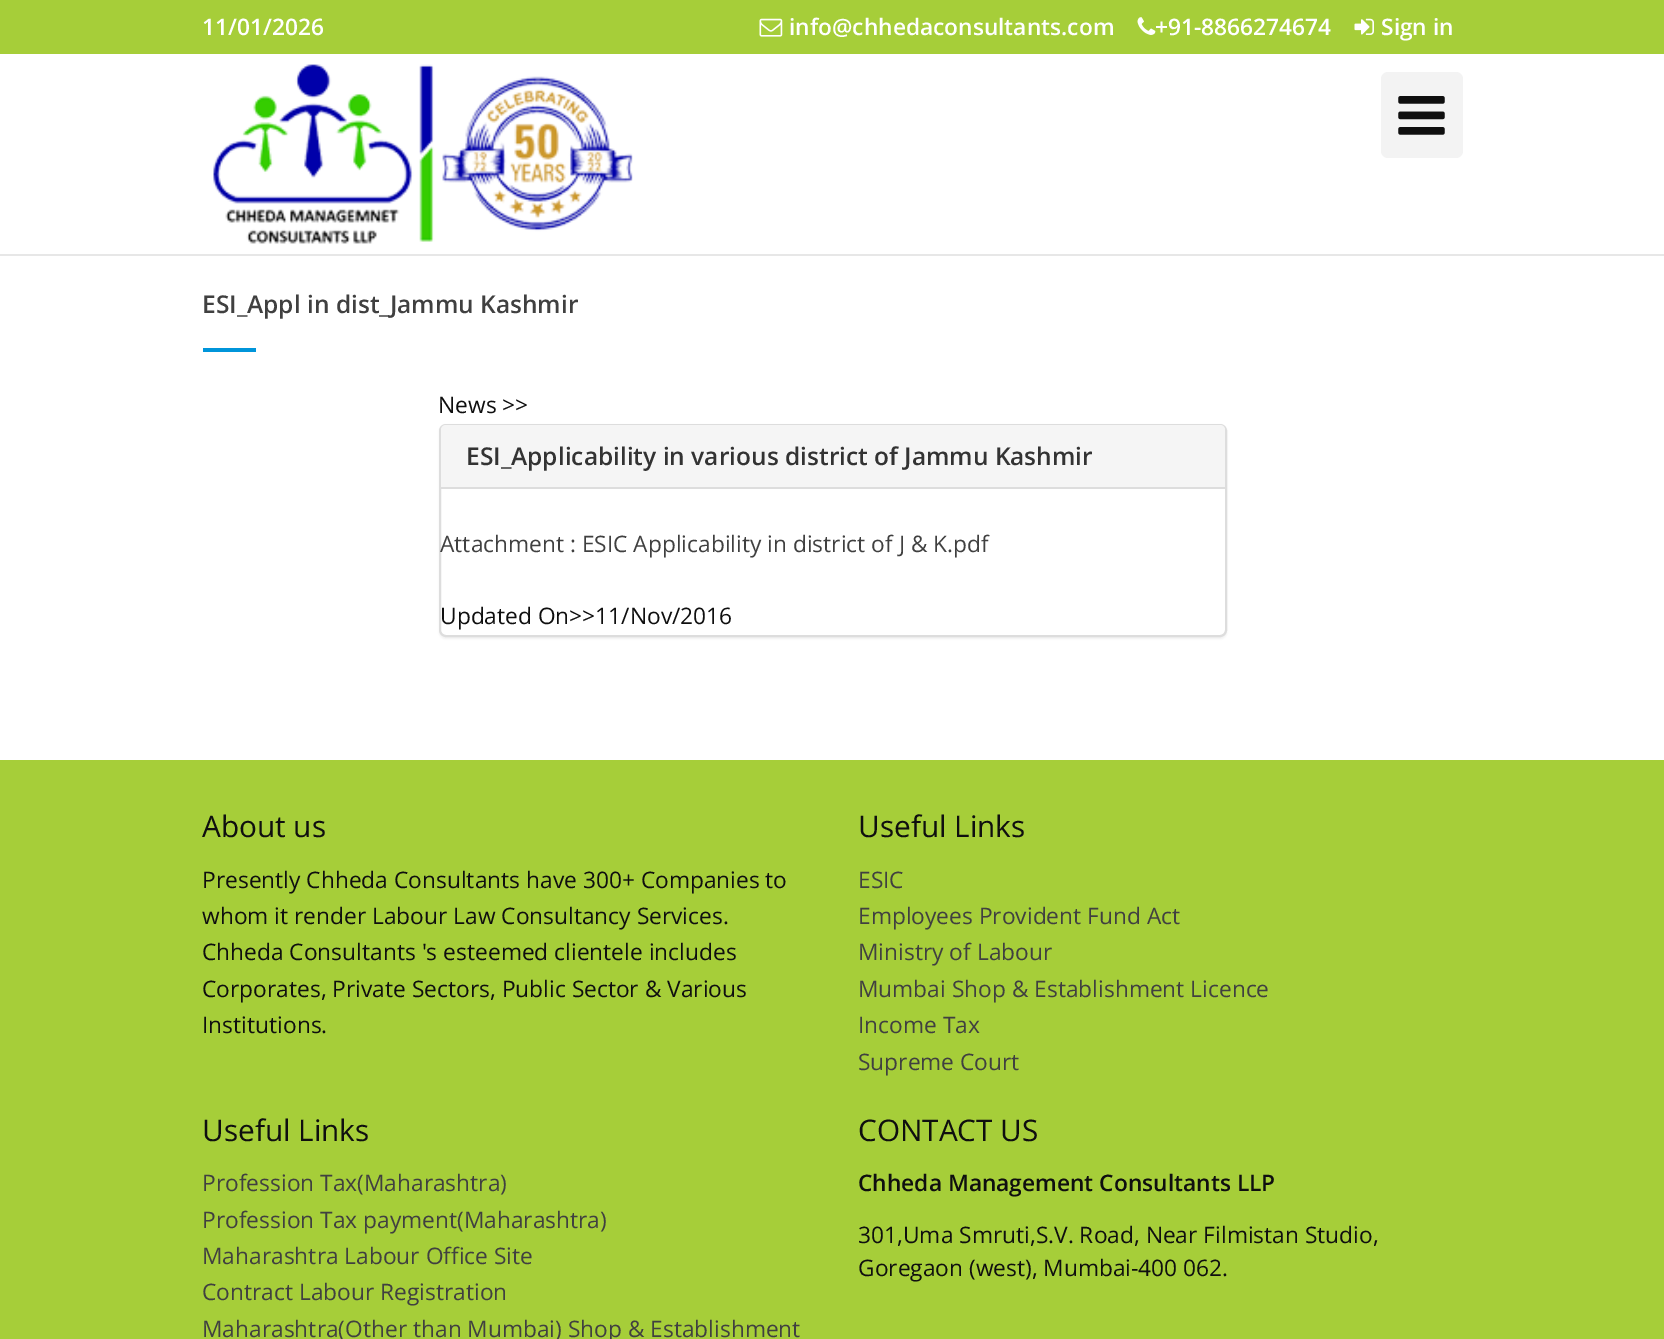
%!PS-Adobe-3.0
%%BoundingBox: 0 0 1664 1339
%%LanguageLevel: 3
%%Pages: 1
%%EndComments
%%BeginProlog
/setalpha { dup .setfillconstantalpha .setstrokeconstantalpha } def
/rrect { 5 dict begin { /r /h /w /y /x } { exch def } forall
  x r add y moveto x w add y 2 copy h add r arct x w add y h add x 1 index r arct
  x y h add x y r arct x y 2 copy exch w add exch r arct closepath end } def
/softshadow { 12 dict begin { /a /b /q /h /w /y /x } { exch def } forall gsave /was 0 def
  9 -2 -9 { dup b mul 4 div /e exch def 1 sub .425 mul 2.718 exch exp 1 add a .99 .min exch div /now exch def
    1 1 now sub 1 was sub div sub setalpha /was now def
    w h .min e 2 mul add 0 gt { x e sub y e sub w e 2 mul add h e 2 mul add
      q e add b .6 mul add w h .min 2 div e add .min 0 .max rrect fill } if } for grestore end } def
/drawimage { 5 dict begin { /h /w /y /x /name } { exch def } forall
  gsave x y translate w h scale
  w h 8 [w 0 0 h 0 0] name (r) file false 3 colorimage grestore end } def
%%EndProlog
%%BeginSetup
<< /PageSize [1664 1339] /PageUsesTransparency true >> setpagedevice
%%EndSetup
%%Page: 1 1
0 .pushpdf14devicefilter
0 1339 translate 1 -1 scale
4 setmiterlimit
1 setgray
0 0 1664 1339 rectfill
0.651 0.808 0.224 setrgbcolor
0 0 1664 54 rectfill
(images/1.raw) 759 18 24 19 drawimage
(images/2.raw) 1137 17 19 18 drawimage
(images/3.raw) 1354 18 20 17 drawimage
0.906 setgray
0 254 1664 2 rectfill
(images/4.raw) 213 64 420 180 drawimage
0.953 setgray
1381 72 82 86 7 rrect fill
(images/5.raw) 1398 96 47 39 drawimage
0 0.584 0.855 setrgbcolor
203 348 53 4 rectfill
0 setgray
439 425 788 214 7 1 0.05 softshadow
1 setgray
440 425 786 211 6 rrect gsave fill grestore
0.867 setgray
2 setlinewidth
stroke
0.961 setgray
newpath 446 425 moveto 1220 425 lineto 1223 425 1225 427 1225 430 curveto 1225 488 lineto 441 488 lineto 441 430 lineto 441 427 443 425 446 425 curveto closepath fill
0.867 setgray
441 487 784 2 rectfill
0.651 0.808 0.224 setrgbcolor
0 760 1664 579 rectfill
/OpenSans-SemiBold [22.75 0 0 -22.75 0 0] selectfont
1 setgray
202 35 moveto (11/01/2026) show
789 35 moveto (info@chhedaconsultants.com) show
1155 35 moveto (+91-8866274674) show
1381 35 moveto (Sign in) show
/OpenSans-SemiBold [24.5 0 0 -24.5 0 0] selectfont
0.251 setgray
202 313 moveto (ESI_Appl in dist_Jammu Kashmir) show
/OpenSans-Regular [22.75 0 0 -22.75 0 0] selectfont
0.059 setgray
438 413 moveto (News >>) show
/OpenSans-SemiBold [24.5 0 0 -24.5 0 0] selectfont
0.2 setgray
466 465 moveto (ESI_Applicability in various district of Jammu Kashmir) show
/OpenSans-Regular [22.75 0 0 -22.75 0 0] selectfont
0.251 setgray
440 552 moveto (Attachment : ESIC Applicability in district of J & K.pdf) show
0.059 setgray
440 624 moveto (Updated On>>11/Nov/2016) show
/OpenSans-Regular [29.75 0 0 -29.75 0 0] selectfont
202 837 moveto (About us) show
/OpenSans-Regular [22.75 0 0 -22.75 0 0] selectfont
202 888 moveto (Presently Chheda Consultants have 300+ Companies to) show
202 924 moveto (whom it render Labour Law Consultancy Services.) show
202 960 moveto (Chheda Consultants 's esteemed clientele includes) show
202 997 moveto (Corporates, Private Sectors, Public Sector & Various) show
202 1033 moveto (Institutions.) show
/OpenSans-Regular [29.75 0 0 -29.75 0 0] selectfont
858 837 moveto (Useful Links) show
/OpenSans-Regular [22.75 0 0 -22.75 0 0] selectfont
0.251 setgray
858 888 moveto (ESIC) show
858 924 moveto (Employees Provident Fund Act) show
858 960 moveto (Ministry of Labour) show
858 997 moveto (Mumbai Shop & Establishment Licence) show
858 1033 moveto (Income Tax) show
858 1070 moveto (Supreme Court) show
/OpenSans-Regular [29.75 0 0 -29.75 0 0] selectfont
0.059 setgray
202 1141 moveto (Useful Links) show
/OpenSans-Regular [22.75 0 0 -22.75 0 0] selectfont
0.251 setgray
202 1191 moveto (Profession Tax\(Maharashtra\)) show
202 1228 moveto (Profession Tax payment\(Maharashtra\)) show
202 1264 moveto (Maharashtra Labour Office Site) show
202 1300 moveto (Contract Labour Registration) show
202 1337 moveto (Maharashtra\(Other than Mumbai\) Shop & Establishment) show
/OpenSans-Regular [29.75 0 0 -29.75 0 0] selectfont
0.059 setgray
858 1141 moveto (CONTACT US) show
/OpenSans-SemiBold [22.75 0 0 -22.75 0 0] selectfont
858 1191 moveto (Chheda Management Consultants LLP) show
/OpenSans-Regular [22.75 0 0 -22.75 0 0] selectfont
858 1243 moveto (301,Uma Smruti,S.V. Road, Near Filmistan Studio,) show
858 1276 moveto (Goregaon \(west\), Mumbai-400 062.) show
.poppdf14devicefilter showpage
%%EOF
